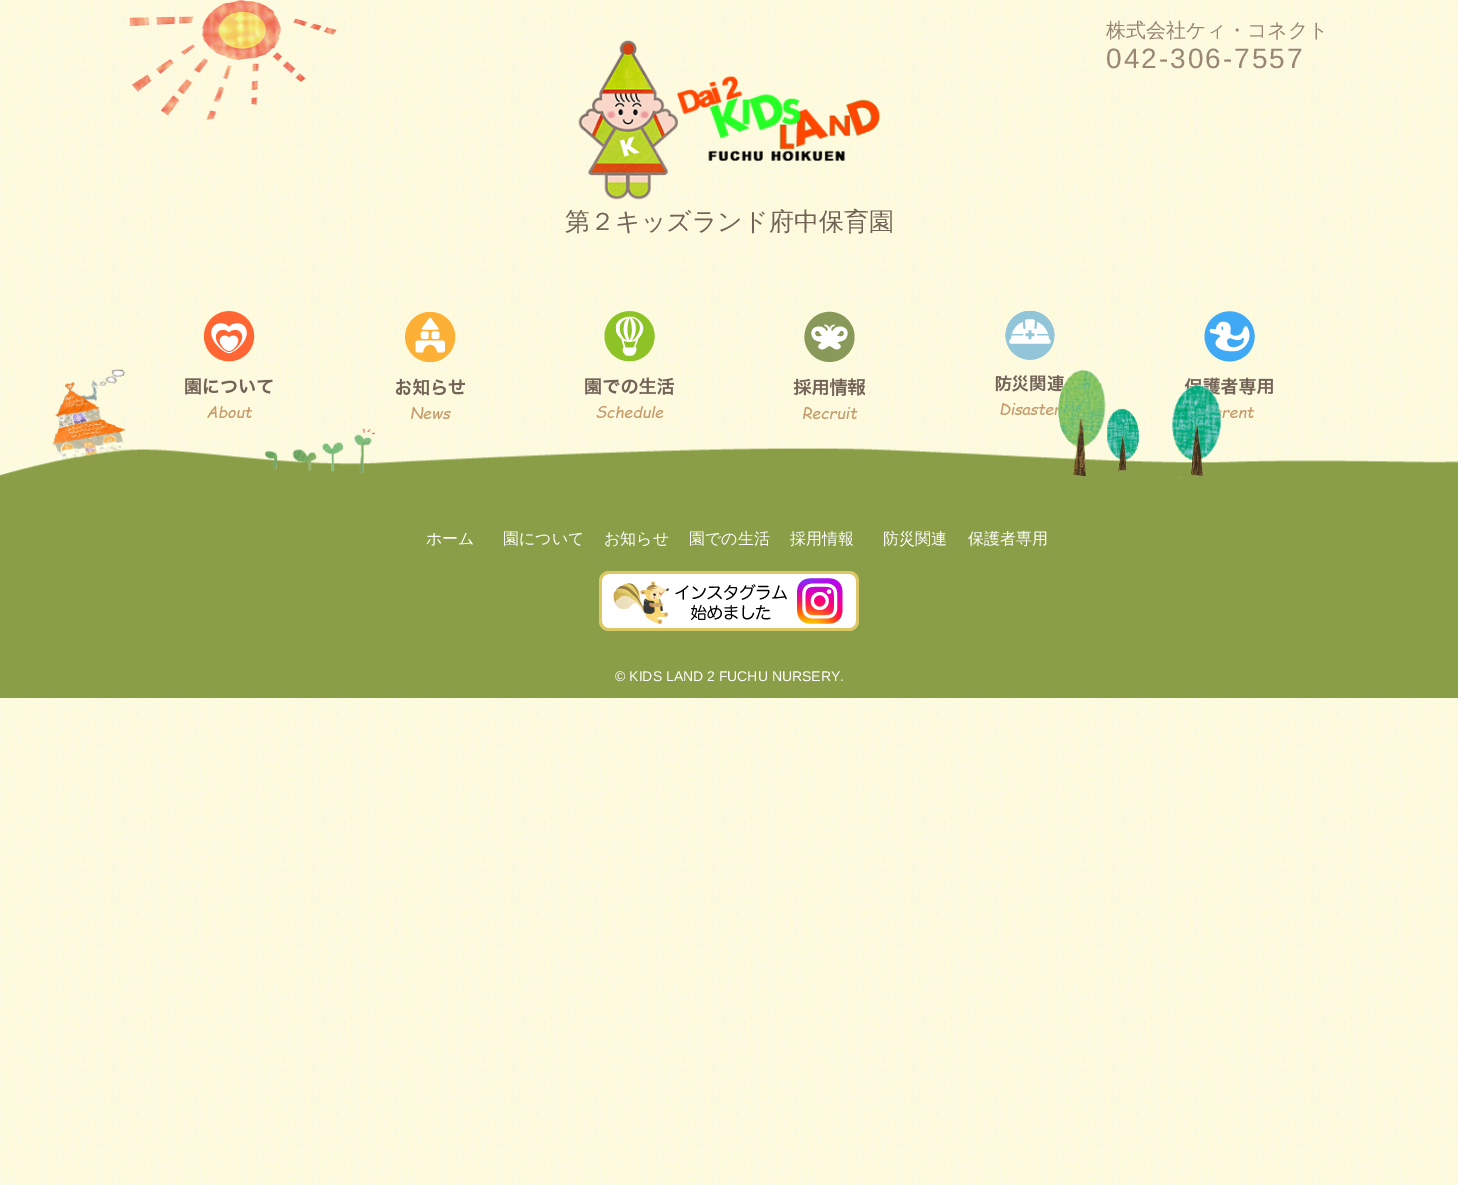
%!PS-Adobe-3.0
%%BoundingBox: 0 0 1458 1185
%%LanguageLevel: 3
%%Pages: 1
%%EndComments
%%BeginProlog
/drawimage { 5 dict begin { /h /w /y /x /name } { exch def } forall
  gsave x y translate w h scale
  w h 8 [w 0 0 h 0 0] name (r) file false 3 colorimage grestore end } def
%%EndProlog
%%BeginSetup
<< /PageSize [1458 1185] >> setpagedevice
%%EndSetup
%%Page: 1 1
0 1185 translate 1 -1 scale
4 setmiterlimit
1 0.988 0.863 setrgbcolor
0 0 1458 1185 rectfill
(images/1.raw) 0 0 1458 1185 drawimage
(images/2.raw) 129 0 208 120 drawimage
(images/3.raw) 578 40 302 160 drawimage
(images/4.raw) 185 311 88 107 drawimage
(images/5.raw) 395 312 71 107 drawimage
(images/6.raw) 585 311 89 107 drawimage
(images/7.raw) 793 311 72 108 drawimage
(images/8.raw) 995 311 69 104 drawimage
(images/9.raw) 1184 311 89 107 drawimage
(images/10.raw) 0 369 1458 112 drawimage
0.537 0.62 0.278 setrgbcolor
0 481 1458 217 rectfill
(images/11.raw) 599 571 260 60 drawimage
/WenQuanYiZenHei-Medium [20 0 0 -20 0 0] selectfont
0.6 0.525 0.459 setrgbcolor
1106 37 moveto (株式会社ケィ・コネクト) show
/LiberationSans-Regular [28 0 0 -28 0 0] selectfont
1106 68 moveto 2 0 (042-306-7557) ashow
/WenQuanYiZenHei-Medium [25 0 0 -25 0 0] selectfont
0.451 0.388 0.341 setrgbcolor
565 230 moveto (第２キッズランド府中保育園) show
/WenQuanYiZenHei-Medium [16 0 0 -16 0 0] selectfont
1 setgray
426 544 moveto (ホーム) show
503 544 moveto (園について) show
604 544 moveto (お知らせ) show
689 544 moveto (園での生活) show
790 544 moveto (採用情報) show
883 544 moveto (防災関連) show
968 544 moveto (保護者専用) show
/LiberationSans-Regular [14 0 0 -14 0 0] selectfont
615 681 moveto (© KIDS LAND 2 FUCHU NURSERY.) show
showpage
%%EOF
